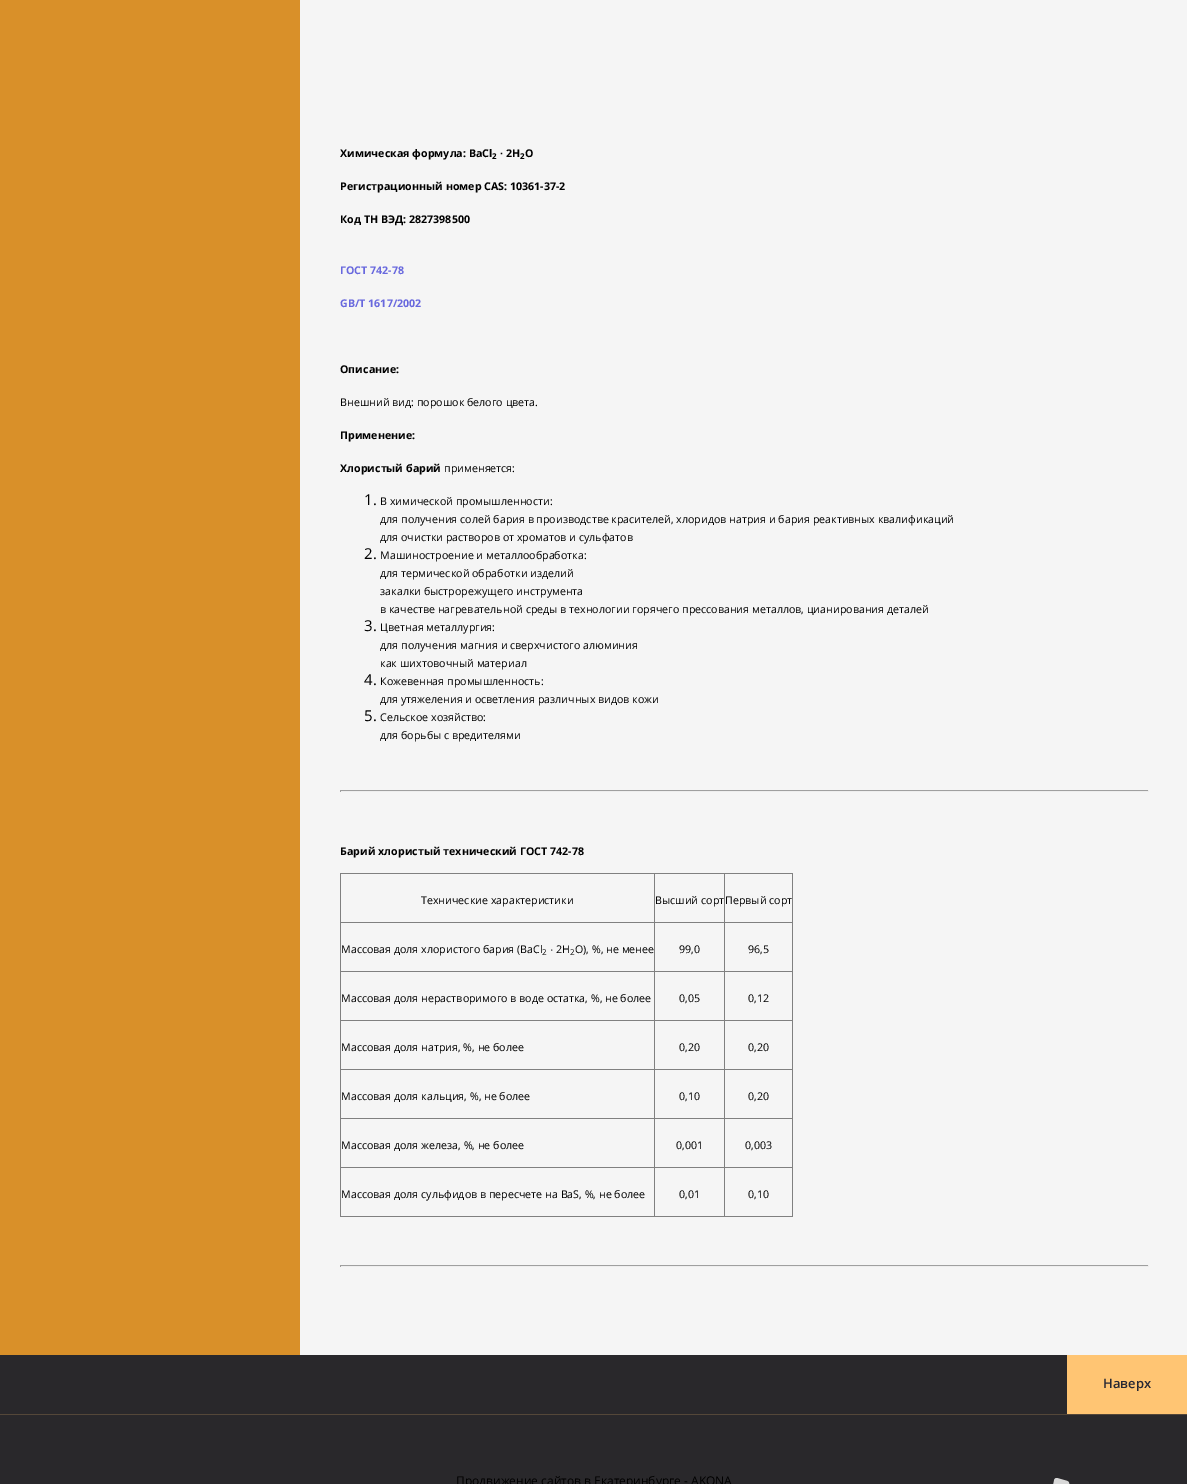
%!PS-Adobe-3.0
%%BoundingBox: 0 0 1187 1484
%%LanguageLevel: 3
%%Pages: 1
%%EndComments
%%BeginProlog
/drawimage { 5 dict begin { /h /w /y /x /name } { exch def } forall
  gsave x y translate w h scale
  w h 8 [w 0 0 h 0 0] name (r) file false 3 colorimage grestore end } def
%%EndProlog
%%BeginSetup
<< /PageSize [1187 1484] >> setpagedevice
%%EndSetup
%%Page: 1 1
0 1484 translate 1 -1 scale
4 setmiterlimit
0.161 0.157 0.169 setrgbcolor
0 0 1187 1484 rectfill
0.961 setgray
300 0 887 1355 rectfill
0.851 0.565 0.161 setrgbcolor
0 0 300 1355 rectfill
0.624 setgray
340 790 809 1 rectfill
0.933 setgray
1148 790 1 2 rectfill
340 791 809 1 rectfill
0.624 setgray
340 790 1 2 rectfill
0.502 setgray
340 873 453 1 rectfill
792 873 1 344 rectfill
340 1216 453 1 rectfill
340 873 1 344 rectfill
724 922 69 1 rectfill
724 971 69 1 rectfill
724 1020 69 1 rectfill
724 1069 69 1 rectfill
724 1118 69 1 rectfill
724 1167 69 1 rectfill
724 1167 1 50 rectfill
654 1167 71 1 rectfill
724 1118 1 50 rectfill
654 1118 71 1 rectfill
724 1069 1 50 rectfill
654 1069 71 1 rectfill
724 1020 1 50 rectfill
654 1020 71 1 rectfill
724 971 1 50 rectfill
654 971 71 1 rectfill
724 922 1 50 rectfill
654 922 71 1 rectfill
654 1167 1 50 rectfill
340 1167 315 1 rectfill
654 1118 1 50 rectfill
340 1118 315 1 rectfill
654 1069 1 50 rectfill
340 1069 315 1 rectfill
654 1020 1 50 rectfill
340 1020 315 1 rectfill
654 971 1 50 rectfill
340 971 315 1 rectfill
654 922 1 50 rectfill
340 922 315 1 rectfill
654 873 1 50 rectfill
724 873 1 50 rectfill
0.624 setgray
340 1265 809 1 rectfill
0.933 setgray
1148 1265 1 2 rectfill
340 1266 809 1 rectfill
0.624 setgray
340 1265 1 2 rectfill
1 0.773 0.451 setrgbcolor
1067 1355 120 59 rectfill
0.329 0.278 0.224 setrgbcolor
0 1414 1187 1 rectfill
(images/1.raw) 1053 1478 17 6 drawimage
/OpenSans-Bold [10.67 0 0 -10.67 0 0] selectfont
0 setgray
340 157 moveto (Химическая формула: ВаСl) show
/OpenSans-Bold [8 0 0 -8 0 0] selectfont
492 159 moveto (2) show
/LiberationSans-Bold [10.67 0 0 -10.67 0 0] selectfont
500 157 moveto (·) show
/OpenSans-Bold [10.67 0 0 -10.67 0 0] selectfont
506 157 moveto (2Н) show
/OpenSans-Bold [8 0 0 -8 0 0] selectfont
520 159 moveto (2) show
/OpenSans-Bold [10.67 0 0 -10.67 0 0] selectfont
525 157 moveto (О) show
340 190 moveto (Регистрационный номер CAS: 10361-37-2) show
340 223 moveto (Код ТН ВЭД: 2827398500) show
0.408 0.408 0.871 setrgbcolor
340 274 moveto (ГОСТ 742-78) show
340 307 moveto (GB/T 1617/2002) show
0 setgray
340 373 moveto (Описание:) show
/OpenSans-Regular [10.67 0 0 -10.67 0 0] selectfont
340 406 moveto (Внешний вид: порошок белого цвета.) show
/OpenSans-Bold [10.67 0 0 -10.67 0 0] selectfont
340 439 moveto (Применение:) show
340 472 moveto (Хлористый барий) show
/OpenSans-Regular [10.67 0 0 -10.67 0 0] selectfont
444 472 moveto (применяется:) show
/OpenSans-Regular [15 0 0 -15 0 0] selectfont
364 505 moveto (1.) show
/OpenSans-Regular [10.67 0 0 -10.67 0 0] selectfont
380 505 moveto (В химической промышленности:) show
380 523 moveto (для получения солей бария в производстве красителей, хлоридов натрия и бария реактивных квалификаций) show
380 541 moveto (для очистки растворов от хроматов и сульфатов) show
/OpenSans-Regular [15 0 0 -15 0 0] selectfont
364 559 moveto (2.) show
/OpenSans-Regular [10.67 0 0 -10.67 0 0] selectfont
380 559 moveto (Машиностроение и металлообработка:) show
380 577 moveto (для термической обработки изделий) show
380 595 moveto (закалки быстрорежущего инструмента) show
380 613 moveto (в качестве нагревательной среды в технологии горячего прессования металлов, цианирования деталей) show
/OpenSans-Regular [15 0 0 -15 0 0] selectfont
364 631 moveto (3.) show
/OpenSans-Regular [10.67 0 0 -10.67 0 0] selectfont
380 631 moveto (Цветная металлургия:) show
380 649 moveto (для получения магния и сверхчистого алюминия) show
380 667 moveto (как шихтовочный материал) show
/OpenSans-Regular [15 0 0 -15 0 0] selectfont
364 685 moveto (4.) show
/OpenSans-Regular [10.67 0 0 -10.67 0 0] selectfont
380 685 moveto (Кожевенная промышленность:) show
380 703 moveto (для утяжеления и осветления различных видов кожи) show
/OpenSans-Regular [15 0 0 -15 0 0] selectfont
364 721 moveto (5.) show
/OpenSans-Regular [10.67 0 0 -10.67 0 0] selectfont
380 721 moveto (Сельское хозяйство:) show
380 739 moveto (для борьбы с вредителями) show
/OpenSans-Bold [10.67 0 0 -10.67 0 0] selectfont
340 855 moveto (Барий хлористый технический ГОСТ 742-78) show
/OpenSans-Regular [10.67 0 0 -10.67 0 0] selectfont
421 904 moveto (Технические характеристики) show
655 904 moveto (Высший сорт) show
725 904 moveto (Первый сорт) show
341 953 moveto (Массовая доля хлористого бария \(ВаСl) show
/OpenSans-Regular [8 0 0 -8 0 0] selectfont
542 955 moveto (2) show
/LiberationSans-Regular [10.67 0 0 -10.67 0 0] selectfont
550 953 moveto (·) show
/OpenSans-Regular [10.67 0 0 -10.67 0 0] selectfont
556 953 moveto (2Н) show
/OpenSans-Regular [8 0 0 -8 0 0] selectfont
570 955 moveto (2) show
/OpenSans-Regular [10.67 0 0 -10.67 0 0] selectfont
575 953 moveto (О\), %, не менее) show
679 953 moveto (99,0) show
748 953 moveto (96,5) show
341 1002 moveto (Массовая доля нерастворимого в воде остатка, %, не более) show
679 1002 moveto (0,05) show
748 1002 moveto (0,12) show
341 1051 moveto (Массовая доля натрия, %, не более) show
679 1051 moveto (0,20) show
748 1051 moveto (0,20) show
341 1100 moveto (Массовая доля кальция, %, не более) show
679 1100 moveto (0,10) show
748 1100 moveto (0,20) show
341 1149 moveto (Массовая доля железа, %, не более) show
676 1149 moveto (0,001) show
745 1149 moveto (0,003) show
341 1198 moveto (Массовая доля сульфидов в пересчете на ВаS, %, не более) show
679 1198 moveto (0,01) show
748 1198 moveto (0,10) show
/OpenSans-SemiBold [13 0 0 -13 0 0] selectfont
0.149 0.153 0.2 setrgbcolor
1103 1388 moveto (Наверх) show
/OpenSans-Regular [12 0 0 -12 0 0] selectfont
0 setgray
456 1485 moveto (Продвижение сайтов в Екатеринбурге - AKONA) show
showpage
%%EOF
